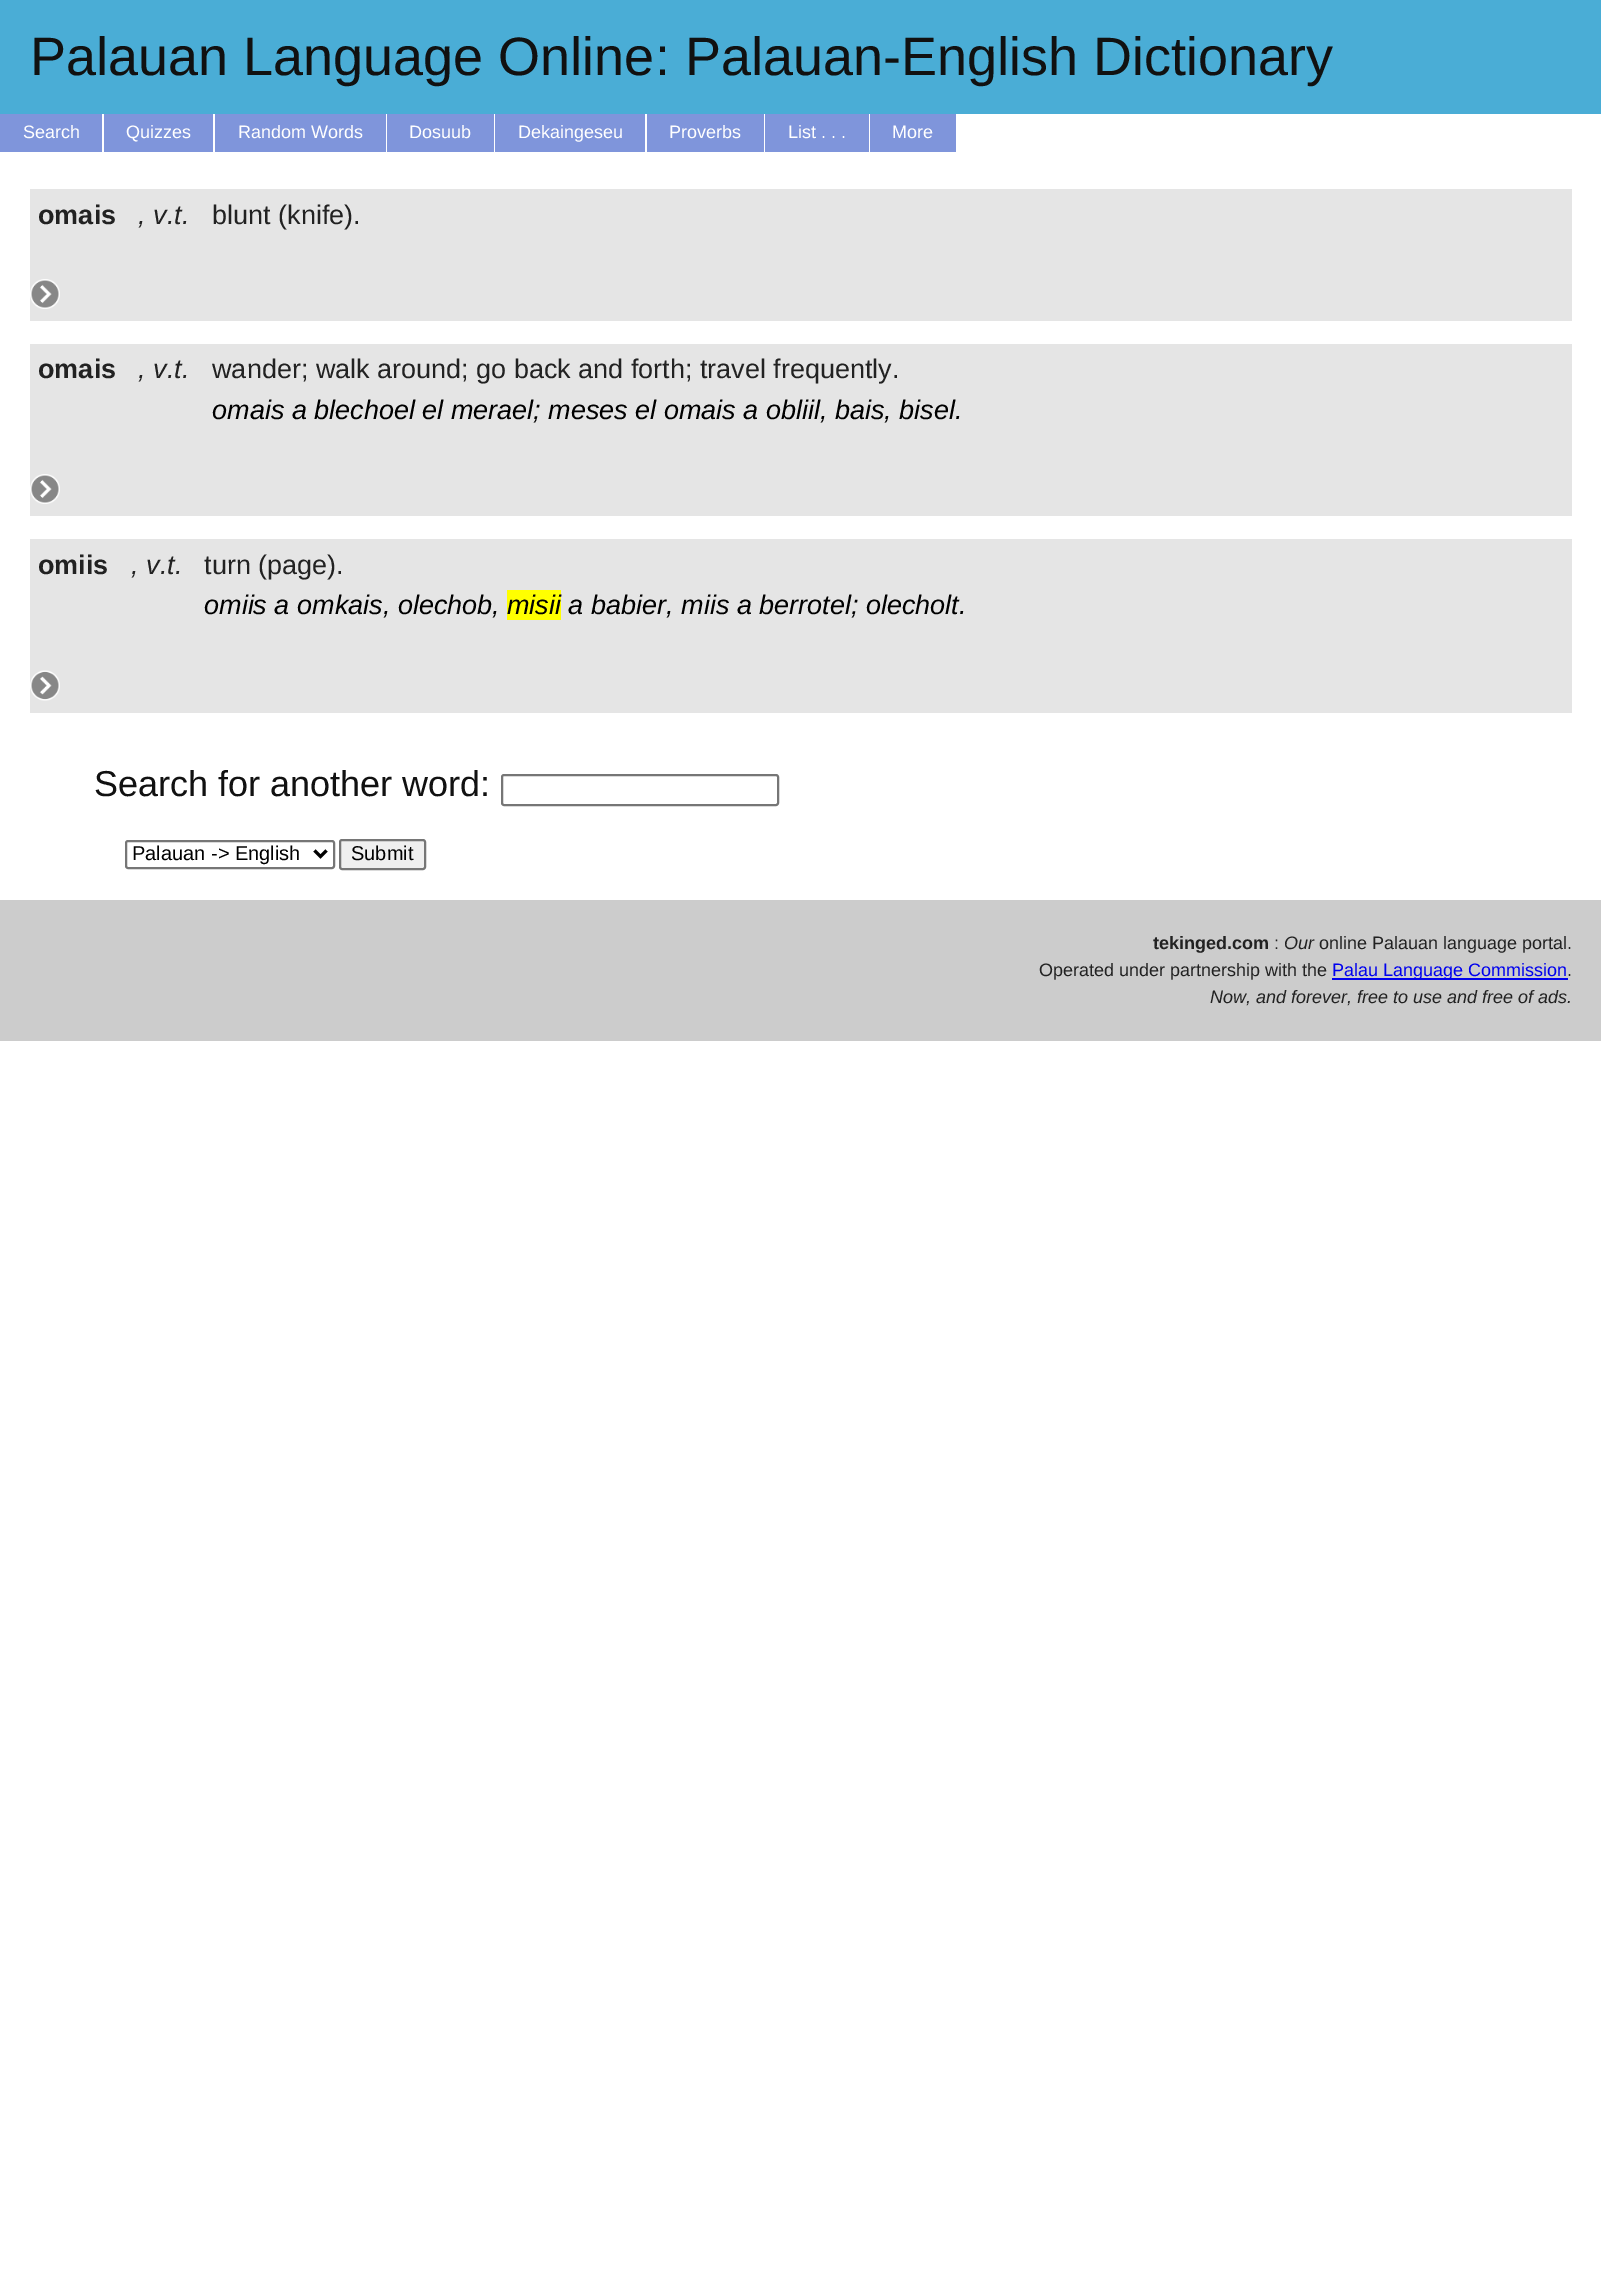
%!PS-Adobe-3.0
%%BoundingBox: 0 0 1601 2272
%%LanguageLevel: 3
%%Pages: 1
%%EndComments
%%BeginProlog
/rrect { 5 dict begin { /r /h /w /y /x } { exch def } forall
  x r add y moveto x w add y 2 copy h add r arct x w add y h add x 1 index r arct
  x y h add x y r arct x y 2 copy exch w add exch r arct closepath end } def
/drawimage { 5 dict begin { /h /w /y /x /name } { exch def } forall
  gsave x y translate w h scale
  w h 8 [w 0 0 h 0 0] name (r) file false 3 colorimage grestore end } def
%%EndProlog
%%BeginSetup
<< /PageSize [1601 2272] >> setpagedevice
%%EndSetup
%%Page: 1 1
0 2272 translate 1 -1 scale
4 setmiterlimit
1 setgray
0 0 1601 2272 rectfill
0.29 0.678 0.839 setrgbcolor
0 0 1601 114 rectfill
0.498 0.584 0.859 setrgbcolor
0 114 102 38 rectfill
104 114 109 38 rectfill
215 114 171 38 rectfill
387 114 107 38 rectfill
495 114 150 38 rectfill
647 114 117 38 rectfill
765 114 104 38 rectfill
870 114 86 38 rectfill
0.898 setgray
30 189 1542 132 rectfill
(images/1.raw) 30 279 30 30 drawimage
30 344 1542 172 rectfill
(images/2.raw) 30 474 30 30 drawimage
30 539 1542 174 rectfill
1 1 0 setrgbcolor
507 590 54 30 rectfill
(images/3.raw) 30 670 30 31 drawimage
0.463 setgray
2 setlinewidth
502 775 276 30 2 rrect stroke
126 841 208 27 2 rrect stroke
0 setgray
3 setlinewidth
newpath 314.5 850.5 moveto 320.5 856.5 lineto 326.5 850.5 lineto stroke
0.937 setgray
340 840 85 29 2 rrect gsave fill grestore
0.463 setgray
2 setlinewidth
stroke
0.8 setgray
0 900 1601 141 rectfill
0 0 0.933 setrgbcolor
1332 978 236 2 rectfill
/LiberationSans-Regular [54 0 0 -54 0 0] selectfont
0.067 setgray
30 75 moveto (Palauan Language Online: Palauan-English Dictionary) show
/LiberationSans-Regular [18 0 0 -18 0 0] selectfont
1 setgray
23 138 moveto (Search) show
126 138 moveto (Quizzes) show
238 138 moveto (Random Words) show
409 138 moveto (Dosuub) show
518 138 moveto (Dekaingeseu) show
669 138 moveto (Proverbs) show
788 138 moveto (List . . .) show
892 138 moveto (More) show
/LiberationSans-Bold [27 0 0 -27 0 0] selectfont
0.133 setgray
38 224 moveto (omais) show
/LiberationSans-Italic [27 0 0 -27 0 0] selectfont
138 224 moveto (, v.t.) show
/LiberationSans-Regular [27 0 0 -27 0 0] selectfont
212 224 moveto (blunt \(knife\).) show
/LiberationSans-Bold [27 0 0 -27 0 0] selectfont
38 378 moveto (omais) show
/LiberationSans-Italic [27 0 0 -27 0 0] selectfont
138 378 moveto (, v.t.) show
/LiberationSans-Regular [27 0 0 -27 0 0] selectfont
212 378 moveto (wander; walk around; go back and forth; travel frequently.) show
/LiberationSans-Italic [27 0 0 -27 0 0] selectfont
0 setgray
212 419 moveto (omais a blechoel el merael; meses el omais a obliil, bais, bisel.) show
/LiberationSans-Bold [27 0 0 -27 0 0] selectfont
0.133 setgray
38 574 moveto (omiis) show
/LiberationSans-Italic [27 0 0 -27 0 0] selectfont
131 574 moveto (, v.t.) show
/LiberationSans-Regular [27 0 0 -27 0 0] selectfont
204 574 moveto (turn \(page\).) show
/LiberationSans-Italic [27 0 0 -27 0 0] selectfont
0 setgray
204 614 moveto (omiis a omkais, olechob,) show
507 614 moveto (misii a babier, miis a berrotel; olecholt.) show
/LiberationSans-Regular [36 0 0 -36 0 0] selectfont
0.067 setgray
94 796 moveto (Search for another word:) show
/LiberationSans-Regular [20 0 0 -20 0 0] selectfont
0 setgray
132 860 moveto (Palauan -> English) show
351 860 moveto (Submit) show
/LiberationSans-Bold [18 0 0 -18 0 0] selectfont
0.133 setgray
1153 949 moveto (tekinged.com) show
/LiberationSans-Regular [18 0 0 -18 0 0] selectfont
1274 949 moveto (:) show
/LiberationSans-Italic [18 0 0 -18 0 0] selectfont
1284 949 moveto (Our) show
/LiberationSans-Regular [18 0 0 -18 0 0] selectfont
1319 949 moveto (online Palauan language portal.) show
1039 976 moveto (Operated under partnership with the) show
0 0 0.933 setrgbcolor
1332 976 moveto (Palau Language Commission) show
0.133 setgray
1567 976 moveto (.) show
/LiberationSans-Italic [18 0 0 -18 0 0] selectfont
1210 1003 moveto (Now, and forever, free to use and free of ads.) show
showpage
%%EOF
